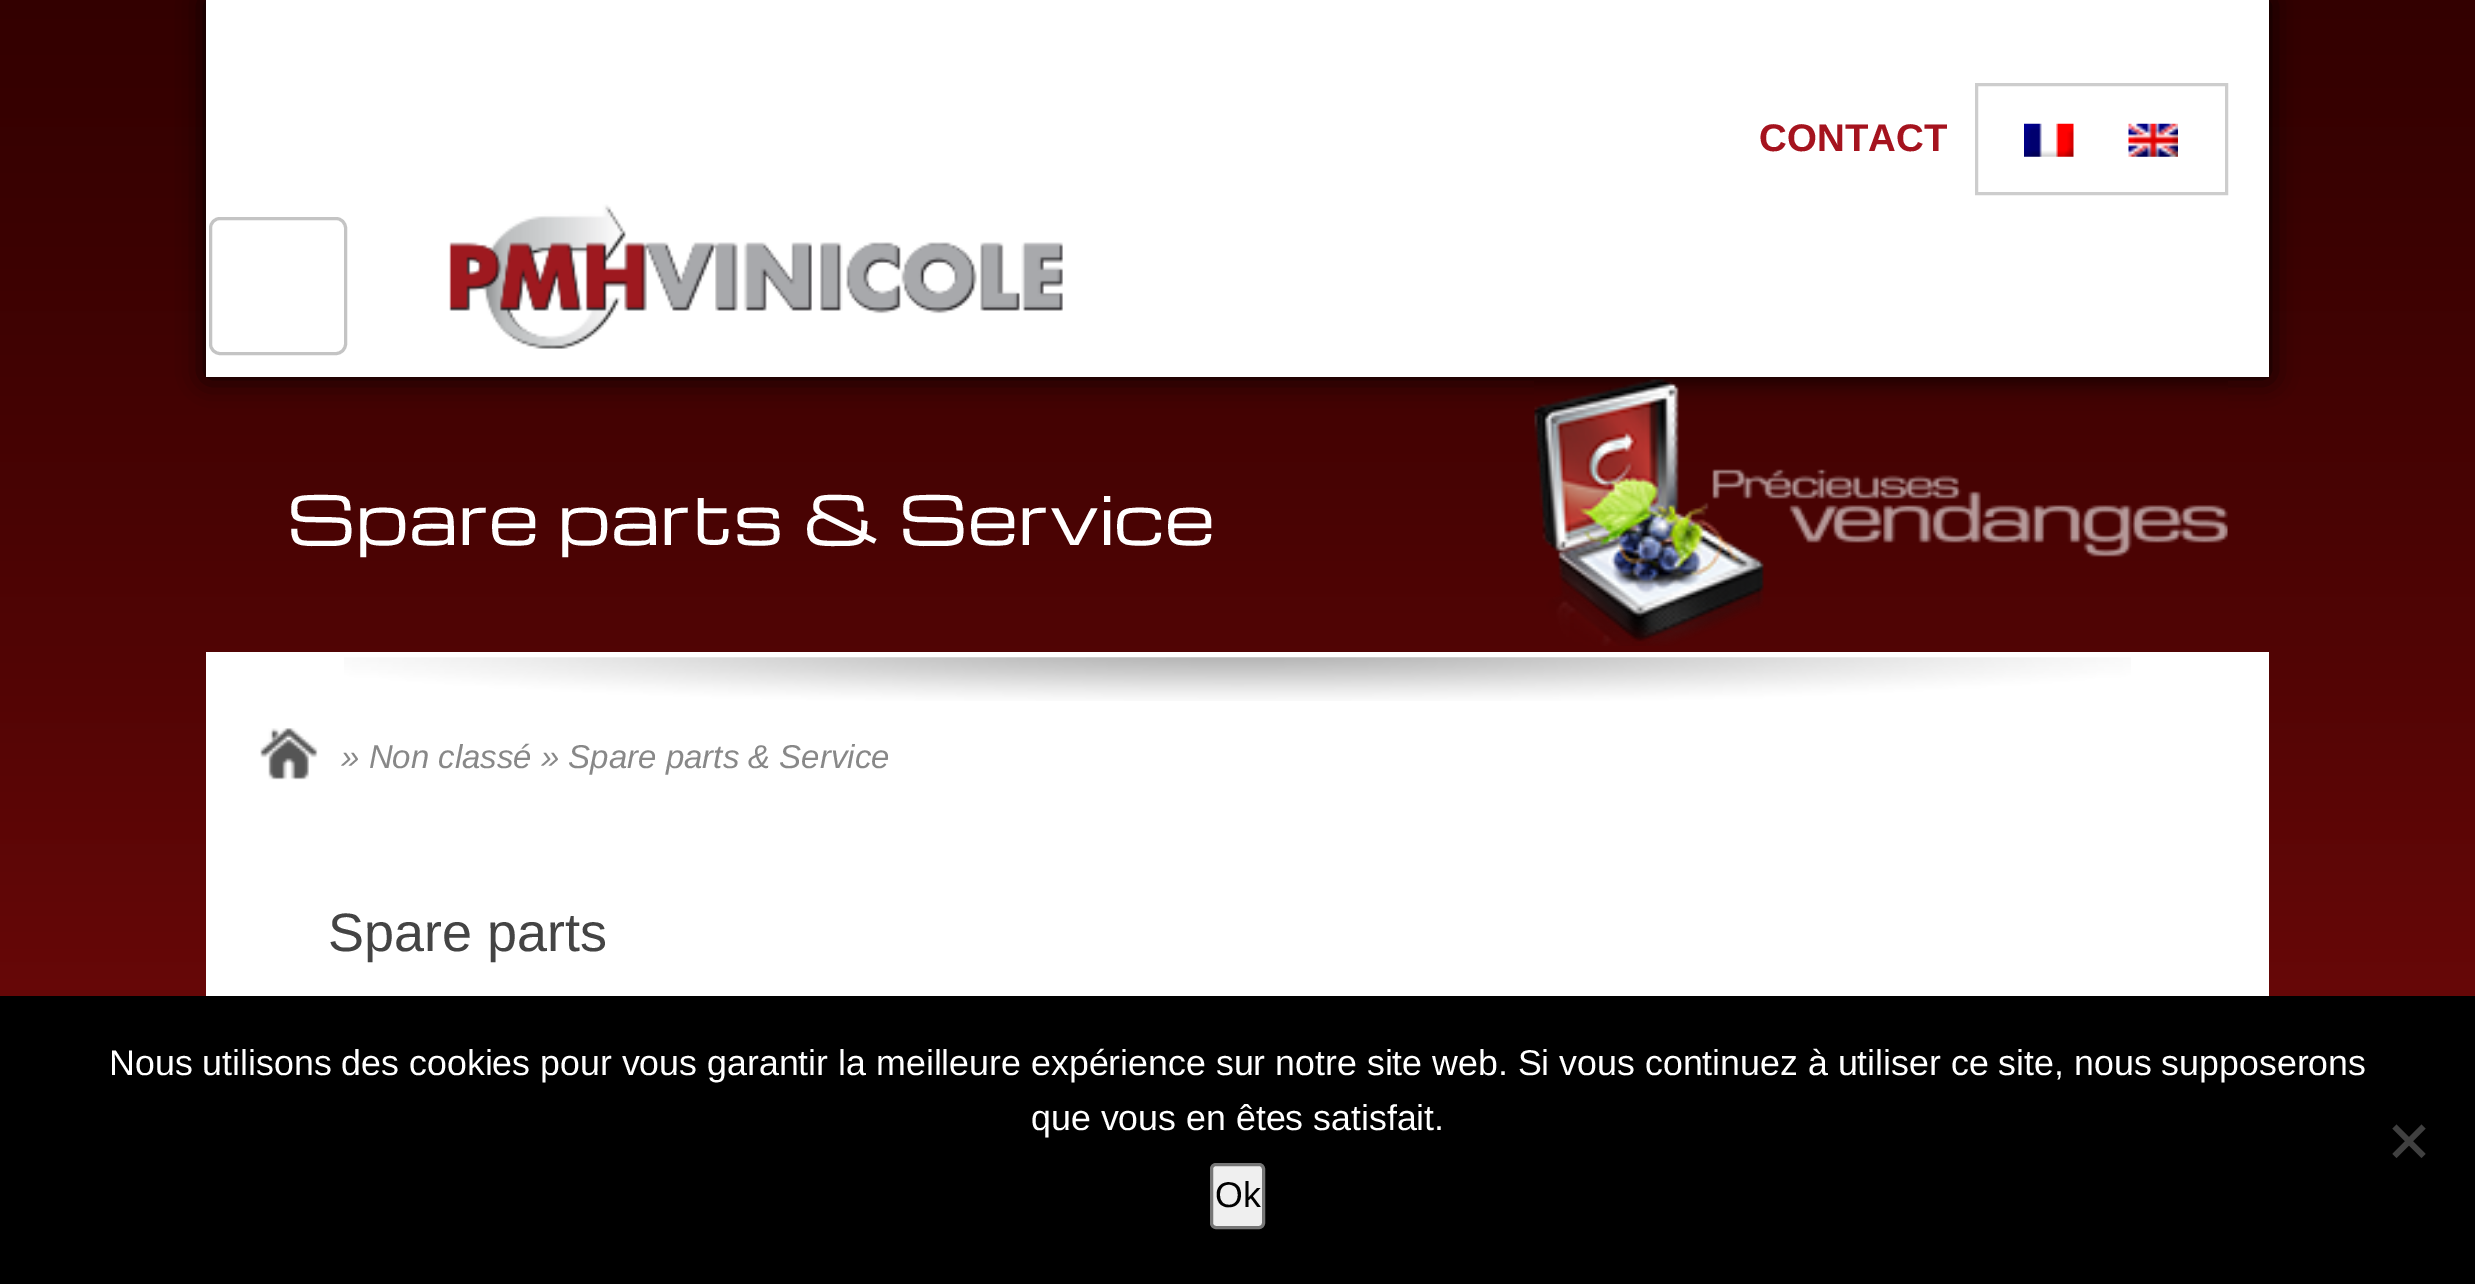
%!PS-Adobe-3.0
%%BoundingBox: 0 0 2475 1284
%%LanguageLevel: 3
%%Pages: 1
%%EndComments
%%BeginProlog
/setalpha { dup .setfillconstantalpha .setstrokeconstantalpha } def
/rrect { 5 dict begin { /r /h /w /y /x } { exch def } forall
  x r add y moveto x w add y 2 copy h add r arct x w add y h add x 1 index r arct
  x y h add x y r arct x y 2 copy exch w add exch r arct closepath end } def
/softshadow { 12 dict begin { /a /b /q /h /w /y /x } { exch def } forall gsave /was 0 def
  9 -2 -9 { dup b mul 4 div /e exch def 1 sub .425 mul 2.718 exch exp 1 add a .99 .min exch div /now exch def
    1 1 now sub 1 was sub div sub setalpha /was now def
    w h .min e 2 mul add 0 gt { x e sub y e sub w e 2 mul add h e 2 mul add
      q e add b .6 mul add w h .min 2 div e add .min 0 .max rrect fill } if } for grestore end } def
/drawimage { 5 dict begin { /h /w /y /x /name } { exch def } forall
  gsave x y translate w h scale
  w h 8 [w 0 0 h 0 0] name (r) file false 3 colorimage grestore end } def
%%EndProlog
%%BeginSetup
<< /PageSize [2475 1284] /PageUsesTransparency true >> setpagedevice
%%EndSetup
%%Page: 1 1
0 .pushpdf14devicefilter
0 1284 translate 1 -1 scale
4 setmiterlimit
1 setgray
0 0 2475 1284 rectfill
(images/1.raw) 0 0 2475 996 drawimage
0 setgray
206 0 2063 377 0 14 1 softshadow
1 setgray
206 0 2063 377 rectfill
0.804 setgray
3 setlinewidth
1976.5 84.5 250 109 rectstroke
(images/2.raw) 2024 123 50 34 drawimage
(images/3.raw) 2128 123 50 34 drawimage
0.769 setgray
210.5 218.5 135 135 9.5 rrect stroke
(images/4.raw) 449 204 614 145 drawimage
(images/5.raw) 1534 379 694 267 drawimage
1 setgray
206 652 2063 344 rectfill
(images/6.raw) 344 657 1787 44 drawimage
(images/7.raw) 260 728 58 52 drawimage
0 setgray
0 996 2475 288 rectfill
0.251 setgray
newpath 2421.5 1124.5 moveto 2425.5 1128.5 lineto 2396.5 1158 lineto 2392.5 1154 lineto closepath fill
newpath 2392.5 1128.5 moveto 2396.5 1124.5 lineto 2425.5 1154 lineto 2421.5 1158 lineto closepath fill
0.937 setgray
1211.5 1164.5 52 63 4.5 rrect gsave fill grestore
0.463 setgray
stroke
/LiberationSans-Bold [38.5 0 0 -38.5 0 0] selectfont
0.647 0.075 0.118 setrgbcolor
1759 151 moveto (CONTACT) show
/Michroma-Regular [65.5 0 0 -65.5 0 0] selectfont
1 setgray
287 545 moveto (Spare parts & Service) show
/LiberationSans-Italic [33 0 0 -33 0 0] selectfont
0.533 setgray
341 768 moveto (» Non classé » Spare parts & Service) show
/LiberationSans-Regular [54 0 0 -54 0 0] selectfont
0.267 setgray
328 951 moveto (Spare parts) show
/LiberationSans-Regular [35.75 0 0 -35.75 0 0] selectfont
1 setgray
109 1075 moveto (Nous utilisons des cookies pour vous garantir la meilleure expérience sur notre site web. Si vous continuez à utiliser ce site, nous supposerons) show
1031 1130 moveto (que vous en êtes satisfait.) show
0 setgray
1215 1207 moveto (Ok) show
.poppdf14devicefilter showpage
%%EOF
